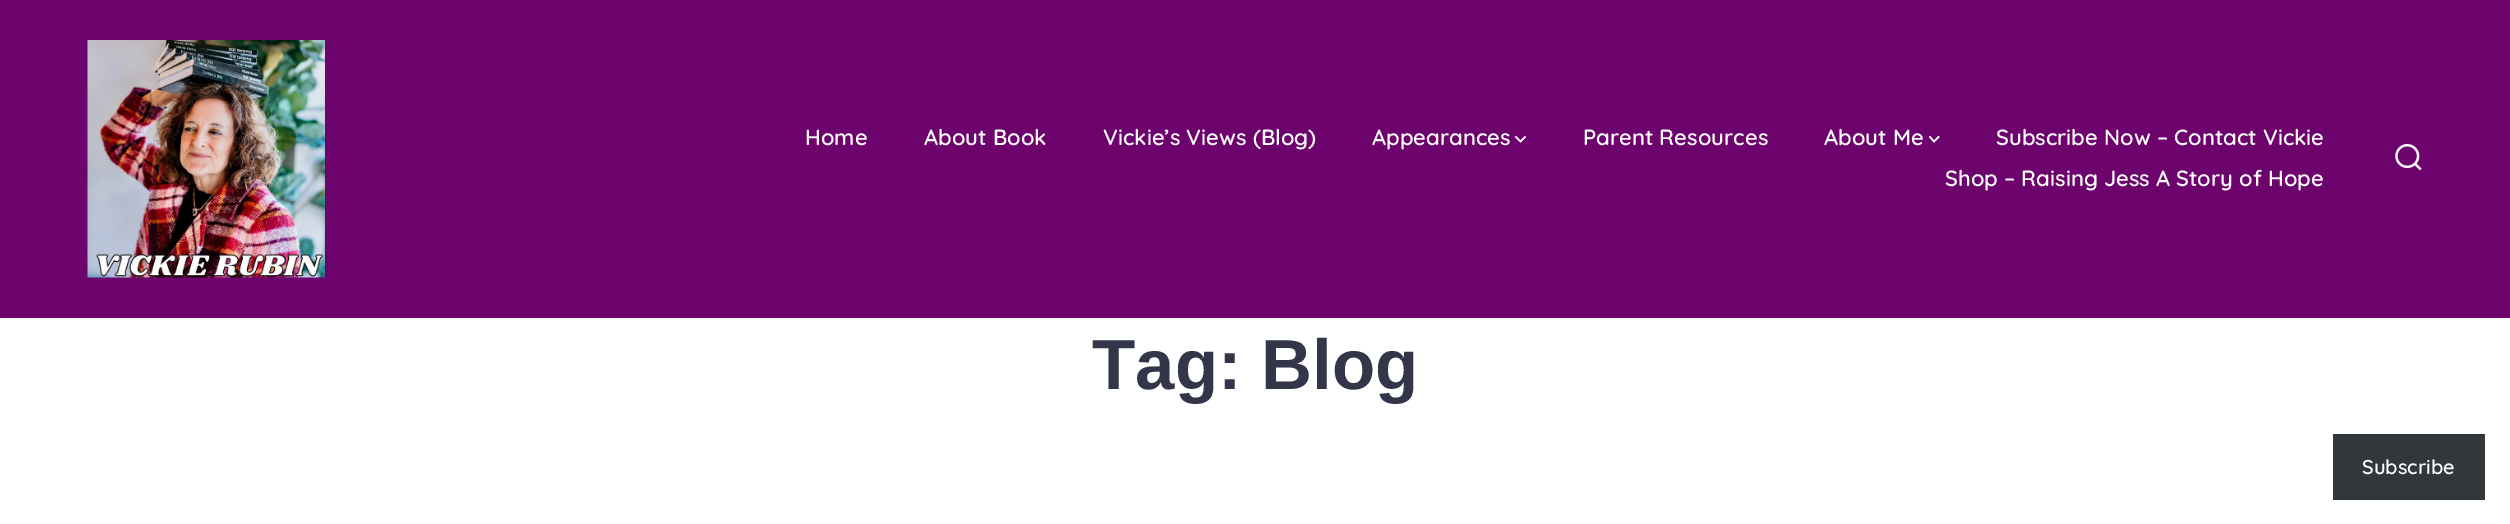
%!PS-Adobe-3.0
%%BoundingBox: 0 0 2510 524
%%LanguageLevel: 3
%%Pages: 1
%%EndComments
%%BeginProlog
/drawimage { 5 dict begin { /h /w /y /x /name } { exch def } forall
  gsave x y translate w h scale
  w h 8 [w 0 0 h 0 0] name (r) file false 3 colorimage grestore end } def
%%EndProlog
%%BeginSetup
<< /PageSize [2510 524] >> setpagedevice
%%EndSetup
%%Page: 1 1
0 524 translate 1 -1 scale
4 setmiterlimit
1 setgray
0 0 2510 524 rectfill
0.427 0.012 0.424 setrgbcolor
0 0 2510 318 rectfill
(images/1.raw) 87 40 238 238 drawimage
0.98 setgray
1.6 setlinewidth
2 setlinecap
newpath 1516 137 moveto 1520.5 141.5 lineto 1525 137 lineto stroke
newpath 1930 137 moveto 1934 141.5 lineto 1938.5 137 lineto stroke
(images/2.raw) 2395 144 27 26 drawimage
0.196 0.216 0.235 setrgbcolor
2333 434 152 66 rectfill
/Quicksand-SemiBold [22 0 0 -22 0 0] selectfont
0.98 setgray
805 145 moveto (Home) show
924 145 moveto (About Book) show
1103 145 moveto (Vickie’s Views \(Blog\)) show
1372 145 moveto (Appearances) show
1583 145 moveto (Parent Resources) show
1824 145 moveto (About Me) show
1996 145 moveto (Subscribe Now – Contact Vickie) show
1945 186 moveto (Shop – Raising Jess A Story of Hope) show
/LiberationSans-Bold [70.75 0 0 -70.75 0 0] selectfont
0.196 0.212 0.282 setrgbcolor
1092 389 moveto (Tag: Blog) show
/Quicksand-SemiBold [20 0 0 -20 0 0] selectfont
0.98 setgray
2362 474 moveto (Subscribe) show
showpage
%%EOF
